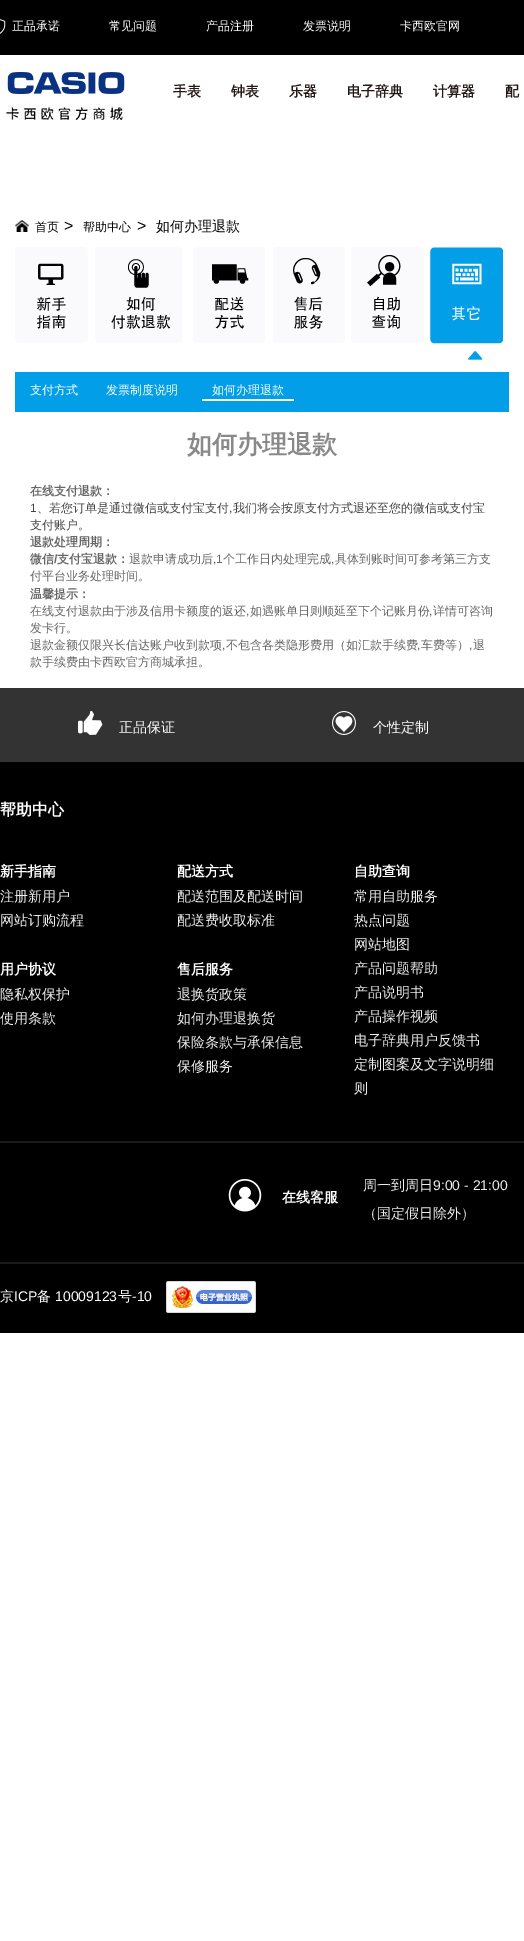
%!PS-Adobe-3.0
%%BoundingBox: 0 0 524 1941
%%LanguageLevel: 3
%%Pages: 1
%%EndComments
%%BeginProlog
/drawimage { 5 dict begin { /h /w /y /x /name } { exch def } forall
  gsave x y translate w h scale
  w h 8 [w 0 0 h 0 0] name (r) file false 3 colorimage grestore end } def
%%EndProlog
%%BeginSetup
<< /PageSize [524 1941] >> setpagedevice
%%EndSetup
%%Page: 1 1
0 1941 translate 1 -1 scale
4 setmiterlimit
1 setgray
0 0 524 1941 rectfill
0 setgray
0 0 524 55 rectfill
(images/1.raw) 0 19 6 15 drawimage
(images/2.raw) 6 72 119 48 drawimage
(images/3.raw) 15 220 14 12 drawimage
(images/4.raw) 15 247 73 96 drawimage
(images/5.raw) 95 247 87 96 drawimage
(images/6.raw) 193 247 72 96 drawimage
(images/7.raw) 273 247 72 96 drawimage
(images/8.raw) 351 247 73 96 drawimage
(images/9.raw) 430 247 73 97 drawimage
(images/10.raw) 468 351 15 9 drawimage
0.008 0.62 0.91 setrgbcolor
15 372 494 40 rectfill
1 setgray
202 399 92 2 rectfill
0.2 setgray
0 688 524 74 rectfill
(images/11.raw) 78 711 25 24 drawimage
(images/12.raw) 332 711 24 24 drawimage
0 setgray
0 762 524 571 rectfill
0.102 setgray
0 1141 524 2 rectfill
(images/13.raw) 228 1179 34 33 drawimage
0 1262 524 2 rectfill
(images/14.raw) 166 1281 90 32 drawimage
/WenQuanYiZenHei-Medium [12 0 0 -12 0 0] selectfont
1 setgray
12 30 moveto (正品承诺) show
109 30 moveto (常见问题) show
206 30 moveto (产品注册) show
303 30 moveto (发票说明) show
400 30 moveto (卡西欧官网) show
/WenQuanYiZenHei-Bold [14 0 0 -14 0 0] selectfont
0.133 0.094 0.082 setrgbcolor
173 96 moveto (手表) show
231 96 moveto (钟表) show
289 96 moveto (乐器) show
347 96 moveto (电子辞典) show
433 96 moveto (计算器) show
505 96 moveto (配) show
/WenQuanYiZenHei-Medium [12 0 0 -12 0 0] selectfont
0 setgray
35 231 moveto (首页) show
/LiberationSans-Regular [16 0 0 -16 0 0] selectfont
64 231 moveto (>) show
/WenQuanYiZenHei-Medium [12 0 0 -12 0 0] selectfont
83 231 moveto (帮助中心) show
/LiberationSans-Regular [16 0 0 -16 0 0] selectfont
137 231 moveto (>) show
/WenQuanYiZenHei-Medium [14 0 0 -14 0 0] selectfont
156 231 moveto (如何办理退款) show
/WenQuanYiZenHei-Medium [12 0 0 -12 0 0] selectfont
1 setgray
30 394 moveto (支付方式) show
106 394 moveto (发票制度说明) show
212 394 moveto (如何办理退款) show
/WenQuanYiZenHei-Bold [25 0 0 -25 0 0] selectfont
0.537 setgray
187 453 moveto (如何办理退款) show
/WenQuanYiZenHei-Bold [12 0 0 -12 0 0] selectfont
0.4 setgray
30 495 moveto (在线支付退款：) show
/LiberationSans-Regular [12 0 0 -12 0 0] selectfont
0.271 setgray
30 512 moveto (1) show
/WenQuanYiZenHei-Medium [12 0 0 -12 0 0] selectfont
37 512 moveto (、若您订单是通过微信或支付宝支付 我们将会按原支付方式退还至您的微信或支付宝) show
/LiberationSans-Regular [12 0 0 -12 0 0] selectfont
229 512 moveto (,) show
/WenQuanYiZenHei-Medium [12 0 0 -12 0 0] selectfont
30 529 moveto (支付账户。) show
/WenQuanYiZenHei-Bold [12 0 0 -12 0 0] selectfont
0.4 setgray
30 546 moveto (退款处理周期：) show
30 563 moveto (微信) show
/LiberationSans-Bold [12 0 0 -12 0 0] selectfont
54 563 moveto (/) show
/WenQuanYiZenHei-Bold [12 0 0 -12 0 0] selectfont
57 563 moveto (支付宝退款：) show
/WenQuanYiZenHei-Medium [12 0 0 -12 0 0] selectfont
129 563 moveto (退款申请成功后) show
/LiberationSans-Regular [12 0 0 -12 0 0] selectfont
213 563 moveto (,1) show
/WenQuanYiZenHei-Medium [12 0 0 -12 0 0] selectfont
223 563 moveto (个工作日内处理完成 具体到账时间可参考第三方支) show
/LiberationSans-Regular [12 0 0 -12 0 0] selectfont
331 563 moveto (,) show
/WenQuanYiZenHei-Medium [12 0 0 -12 0 0] selectfont
30 580 moveto (付平台业务处理时间。) show
/WenQuanYiZenHei-Bold [12 0 0 -12 0 0] selectfont
30 598 moveto (温馨提示：) show
/WenQuanYiZenHei-Medium [12 0 0 -12 0 0] selectfont
30 615 moveto (在线支付退款由于涉及信用卡额度的返还 如遇账单日则顺延至下个记账月份 详情可咨询) show
/LiberationSans-Regular [12 0 0 -12 0 0] selectfont
246 615 moveto (,) show
429 615 moveto (,) show
/WenQuanYiZenHei-Medium [12 0 0 -12 0 0] selectfont
30 632 moveto (发卡行。) show
30 649 moveto (退款金额仅限兴长信达账户收到款项 不包含各类隐形费用（如汇款手续费 车费等） 退) show
/LiberationSans-Regular [12 0 0 -12 0 0] selectfont
222 649 moveto (,) show
417 649 moveto (,) show
469 649 moveto (,) show
/WenQuanYiZenHei-Medium [12 0 0 -12 0 0] selectfont
30 666 moveto (款手续费由卡西欧官方商城承担。) show
/WenQuanYiZenHei-Medium [14 0 0 -14 0 0] selectfont
1 setgray
119 732 moveto (正品保证) show
373 732 moveto (个性定制) show
/WenQuanYiZenHei-Bold [16 0 0 -16 0 0] selectfont
0 815 moveto (帮助中心) show
/WenQuanYiZenHei-Bold [14 0 0 -14 0 0] selectfont
0 876 moveto (新手指南) show
/WenQuanYiZenHei-Medium [14 0 0 -14 0 0] selectfont
0.933 setgray
0 901 moveto (注册新用户) show
0 925 moveto (网站订购流程) show
/WenQuanYiZenHei-Bold [14 0 0 -14 0 0] selectfont
1 setgray
0 974 moveto (用户协议) show
/WenQuanYiZenHei-Medium [14 0 0 -14 0 0] selectfont
0.933 setgray
0 999 moveto (隐私权保护) show
0 1023 moveto (使用条款) show
/WenQuanYiZenHei-Bold [14 0 0 -14 0 0] selectfont
1 setgray
177 876 moveto (配送方式) show
/WenQuanYiZenHei-Medium [14 0 0 -14 0 0] selectfont
0.933 setgray
177 901 moveto (配送范围及配送时间) show
177 925 moveto (配送费收取标准) show
/WenQuanYiZenHei-Bold [14 0 0 -14 0 0] selectfont
1 setgray
177 974 moveto (售后服务) show
/WenQuanYiZenHei-Medium [14 0 0 -14 0 0] selectfont
0.933 setgray
177 999 moveto (退换货政策) show
177 1023 moveto (如何办理退换货) show
177 1047 moveto (保险条款与承保信息) show
177 1071 moveto (保修服务) show
/WenQuanYiZenHei-Bold [14 0 0 -14 0 0] selectfont
1 setgray
354 876 moveto (自助查询) show
/WenQuanYiZenHei-Medium [14 0 0 -14 0 0] selectfont
0.933 setgray
354 901 moveto (常用自助服务) show
354 925 moveto (热点问题) show
354 949 moveto (网站地图) show
354 973 moveto (产品问题帮助) show
354 997 moveto (产品说明书) show
354 1021 moveto (产品操作视频) show
354 1045 moveto (电子辞典用户反馈书) show
354 1069 moveto (定制图案及文字说明细) show
354 1093 moveto (则) show
/WenQuanYiZenHei-Bold [14 0 0 -14 0 0] selectfont
1 setgray
282 1202 moveto (在线客服) show
/WenQuanYiZenHei-Medium [14 0 0 -14 0 0] selectfont
0.933 setgray
363 1190 moveto (周一到周日) show
/LiberationSans-Regular [14 0 0 -14 0 0] selectfont
433 1190 moveto (9:00 - 21:00) show
/WenQuanYiZenHei-Medium [14 0 0 -14 0 0] selectfont
363 1218 moveto (（国定假日除外）) show
1 setgray
0 1301 moveto (京) show
/LiberationSans-Regular [14 0 0 -14 0 0] selectfont
14 1301 moveto (ICP) show
/WenQuanYiZenHei-Medium [14 0 0 -14 0 0] selectfont
37 1301 moveto (备) show
/LiberationSans-Regular [14 0 0 -14 0 0] selectfont
55 1301 moveto (10009123) show
/WenQuanYiZenHei-Medium [14 0 0 -14 0 0] selectfont
118 1301 moveto (号) show
/LiberationSans-Regular [14 0 0 -14 0 0] selectfont
132 1301 moveto (-10) show
showpage
%%EOF
